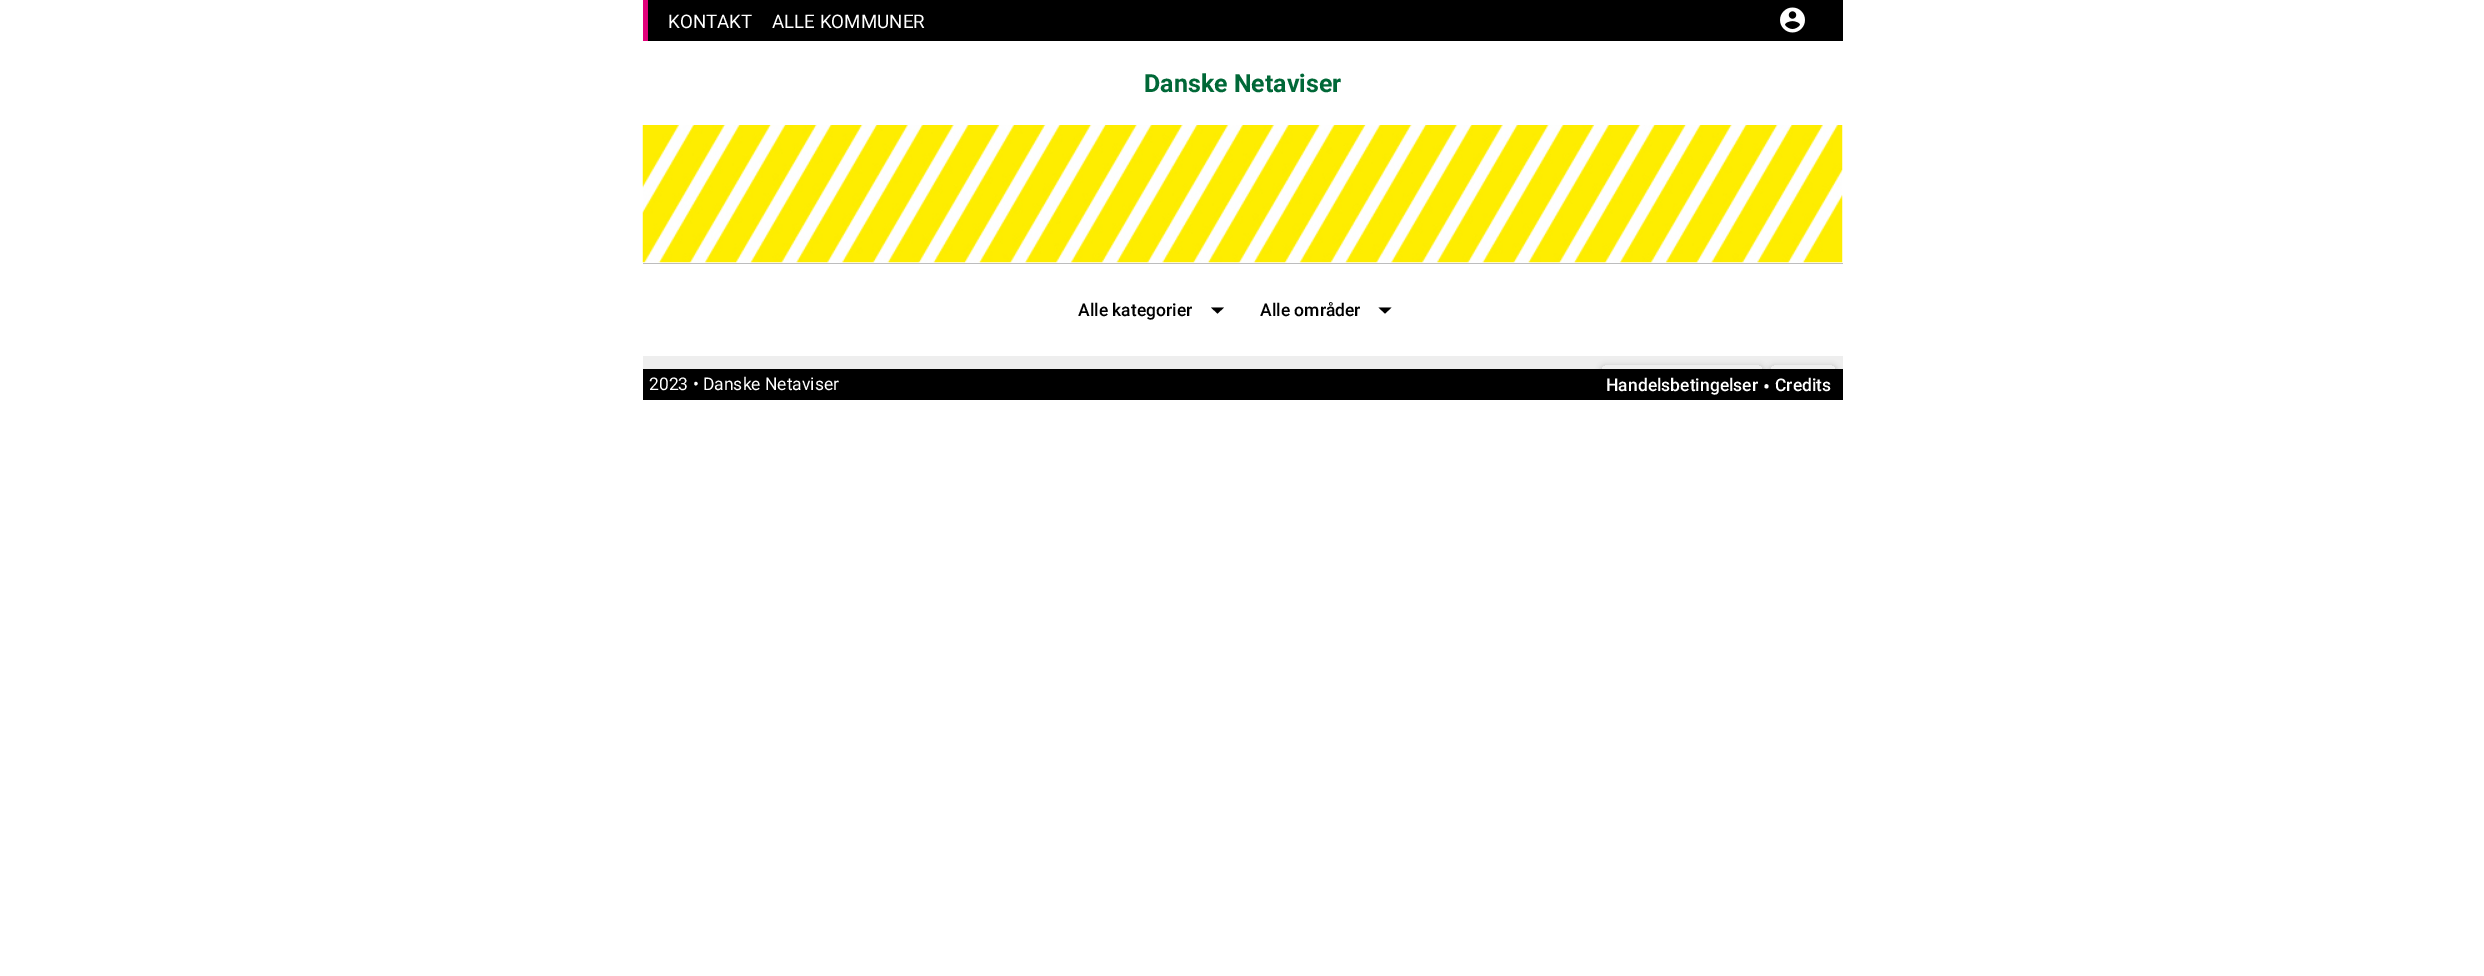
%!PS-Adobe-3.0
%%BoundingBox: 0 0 2484 976
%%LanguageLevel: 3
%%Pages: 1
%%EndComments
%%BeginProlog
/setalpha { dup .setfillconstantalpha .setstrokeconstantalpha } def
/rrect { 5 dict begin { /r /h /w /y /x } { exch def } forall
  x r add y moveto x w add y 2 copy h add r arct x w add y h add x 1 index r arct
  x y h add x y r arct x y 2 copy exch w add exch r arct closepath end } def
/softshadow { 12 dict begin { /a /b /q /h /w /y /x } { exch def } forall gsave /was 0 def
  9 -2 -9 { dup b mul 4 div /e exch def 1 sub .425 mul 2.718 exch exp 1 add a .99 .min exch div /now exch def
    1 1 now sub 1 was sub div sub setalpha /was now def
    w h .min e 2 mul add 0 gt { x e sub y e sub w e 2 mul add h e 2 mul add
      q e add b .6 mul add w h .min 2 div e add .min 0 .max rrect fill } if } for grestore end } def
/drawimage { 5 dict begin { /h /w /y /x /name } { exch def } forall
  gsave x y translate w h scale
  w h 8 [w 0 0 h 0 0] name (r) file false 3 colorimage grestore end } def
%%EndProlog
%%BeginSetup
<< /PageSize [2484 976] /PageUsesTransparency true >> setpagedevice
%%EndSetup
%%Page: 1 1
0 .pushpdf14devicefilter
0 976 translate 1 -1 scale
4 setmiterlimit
1 setgray
0 0 2484 976 rectfill
0 setgray
648 0 1195 41 rectfill
0.886 0 0.478 setrgbcolor
643 0 5 41 rectfill
(images/1.raw) 1780 7 25 26 drawimage
0.741 setgray
643 263 1200 1 rectfill
(images/2.raw) 642 125 1201 138 drawimage
0 setgray
newpath 1211 307.5 moveto 1224 307.5 lineto 1217.5 313.5 lineto closepath fill
newpath 1378.5 307.5 moveto 1391.5 307.5 lineto 1385 313.5 lineto closepath fill
0.933 setgray
643 356 1200 13 rectfill
0 setgray
643 369 1200 31 rectfill
gsave
newpath 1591 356 moveto 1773 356 lineto 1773 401 lineto 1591 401 lineto closepath 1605 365 moveto 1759 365 lineto 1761 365 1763 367 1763 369 curveto 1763 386 lineto 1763 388 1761 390 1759 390 curveto 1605 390 lineto 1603 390 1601 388 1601 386 curveto 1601 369 lineto 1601 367 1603 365 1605 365 curveto closepath eoclip newpath
1601 366 162 25 4 3 0.2 softshadow
grestore
gsave
newpath 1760 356 moveto 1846 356 lineto 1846 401 lineto 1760 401 lineto closepath 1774 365 moveto 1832 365 lineto 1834 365 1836 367 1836 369 curveto 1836 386 lineto 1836 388 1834 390 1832 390 curveto 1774 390 lineto 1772 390 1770 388 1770 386 curveto 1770 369 lineto 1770 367 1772 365 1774 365 curveto closepath eoclip newpath
1770 366 66 25 4 3 0.2 softshadow
grestore
/Roboto-Regular [18.75 0 0 -18.75 0 0] selectfont
1 setgray
668 28 moveto (KONTAKT) show
772 28 moveto (ALLE KOMMUNER) show
/Roboto-Bold [25 0 0 -25 0 0] selectfont
0 0.408 0.216 setrgbcolor
1144 92 moveto (Danske Netaviser) show
/Roboto-Medium [17.5 0 0 -17.5 0 0] selectfont
0 setgray
1078 316 moveto (Alle kategorier) show
1260 316 moveto (Alle områder) show
/Roboto-Regular [17.5 0 0 -17.5 0 0] selectfont
1 setgray
649 390 moveto (2023 • Danske Netaviser) show
/Roboto-Medium [17.5 0 0 -17.5 0 0] selectfont
1606 391 moveto (Handelsbetingelser) show
/Roboto-Regular [21 0 0 -21 0 0] selectfont
1763 394 moveto (•) show
/Roboto-Medium [17.5 0 0 -17.5 0 0] selectfont
1775 391 moveto (Credits) show
.poppdf14devicefilter showpage
%%EOF
